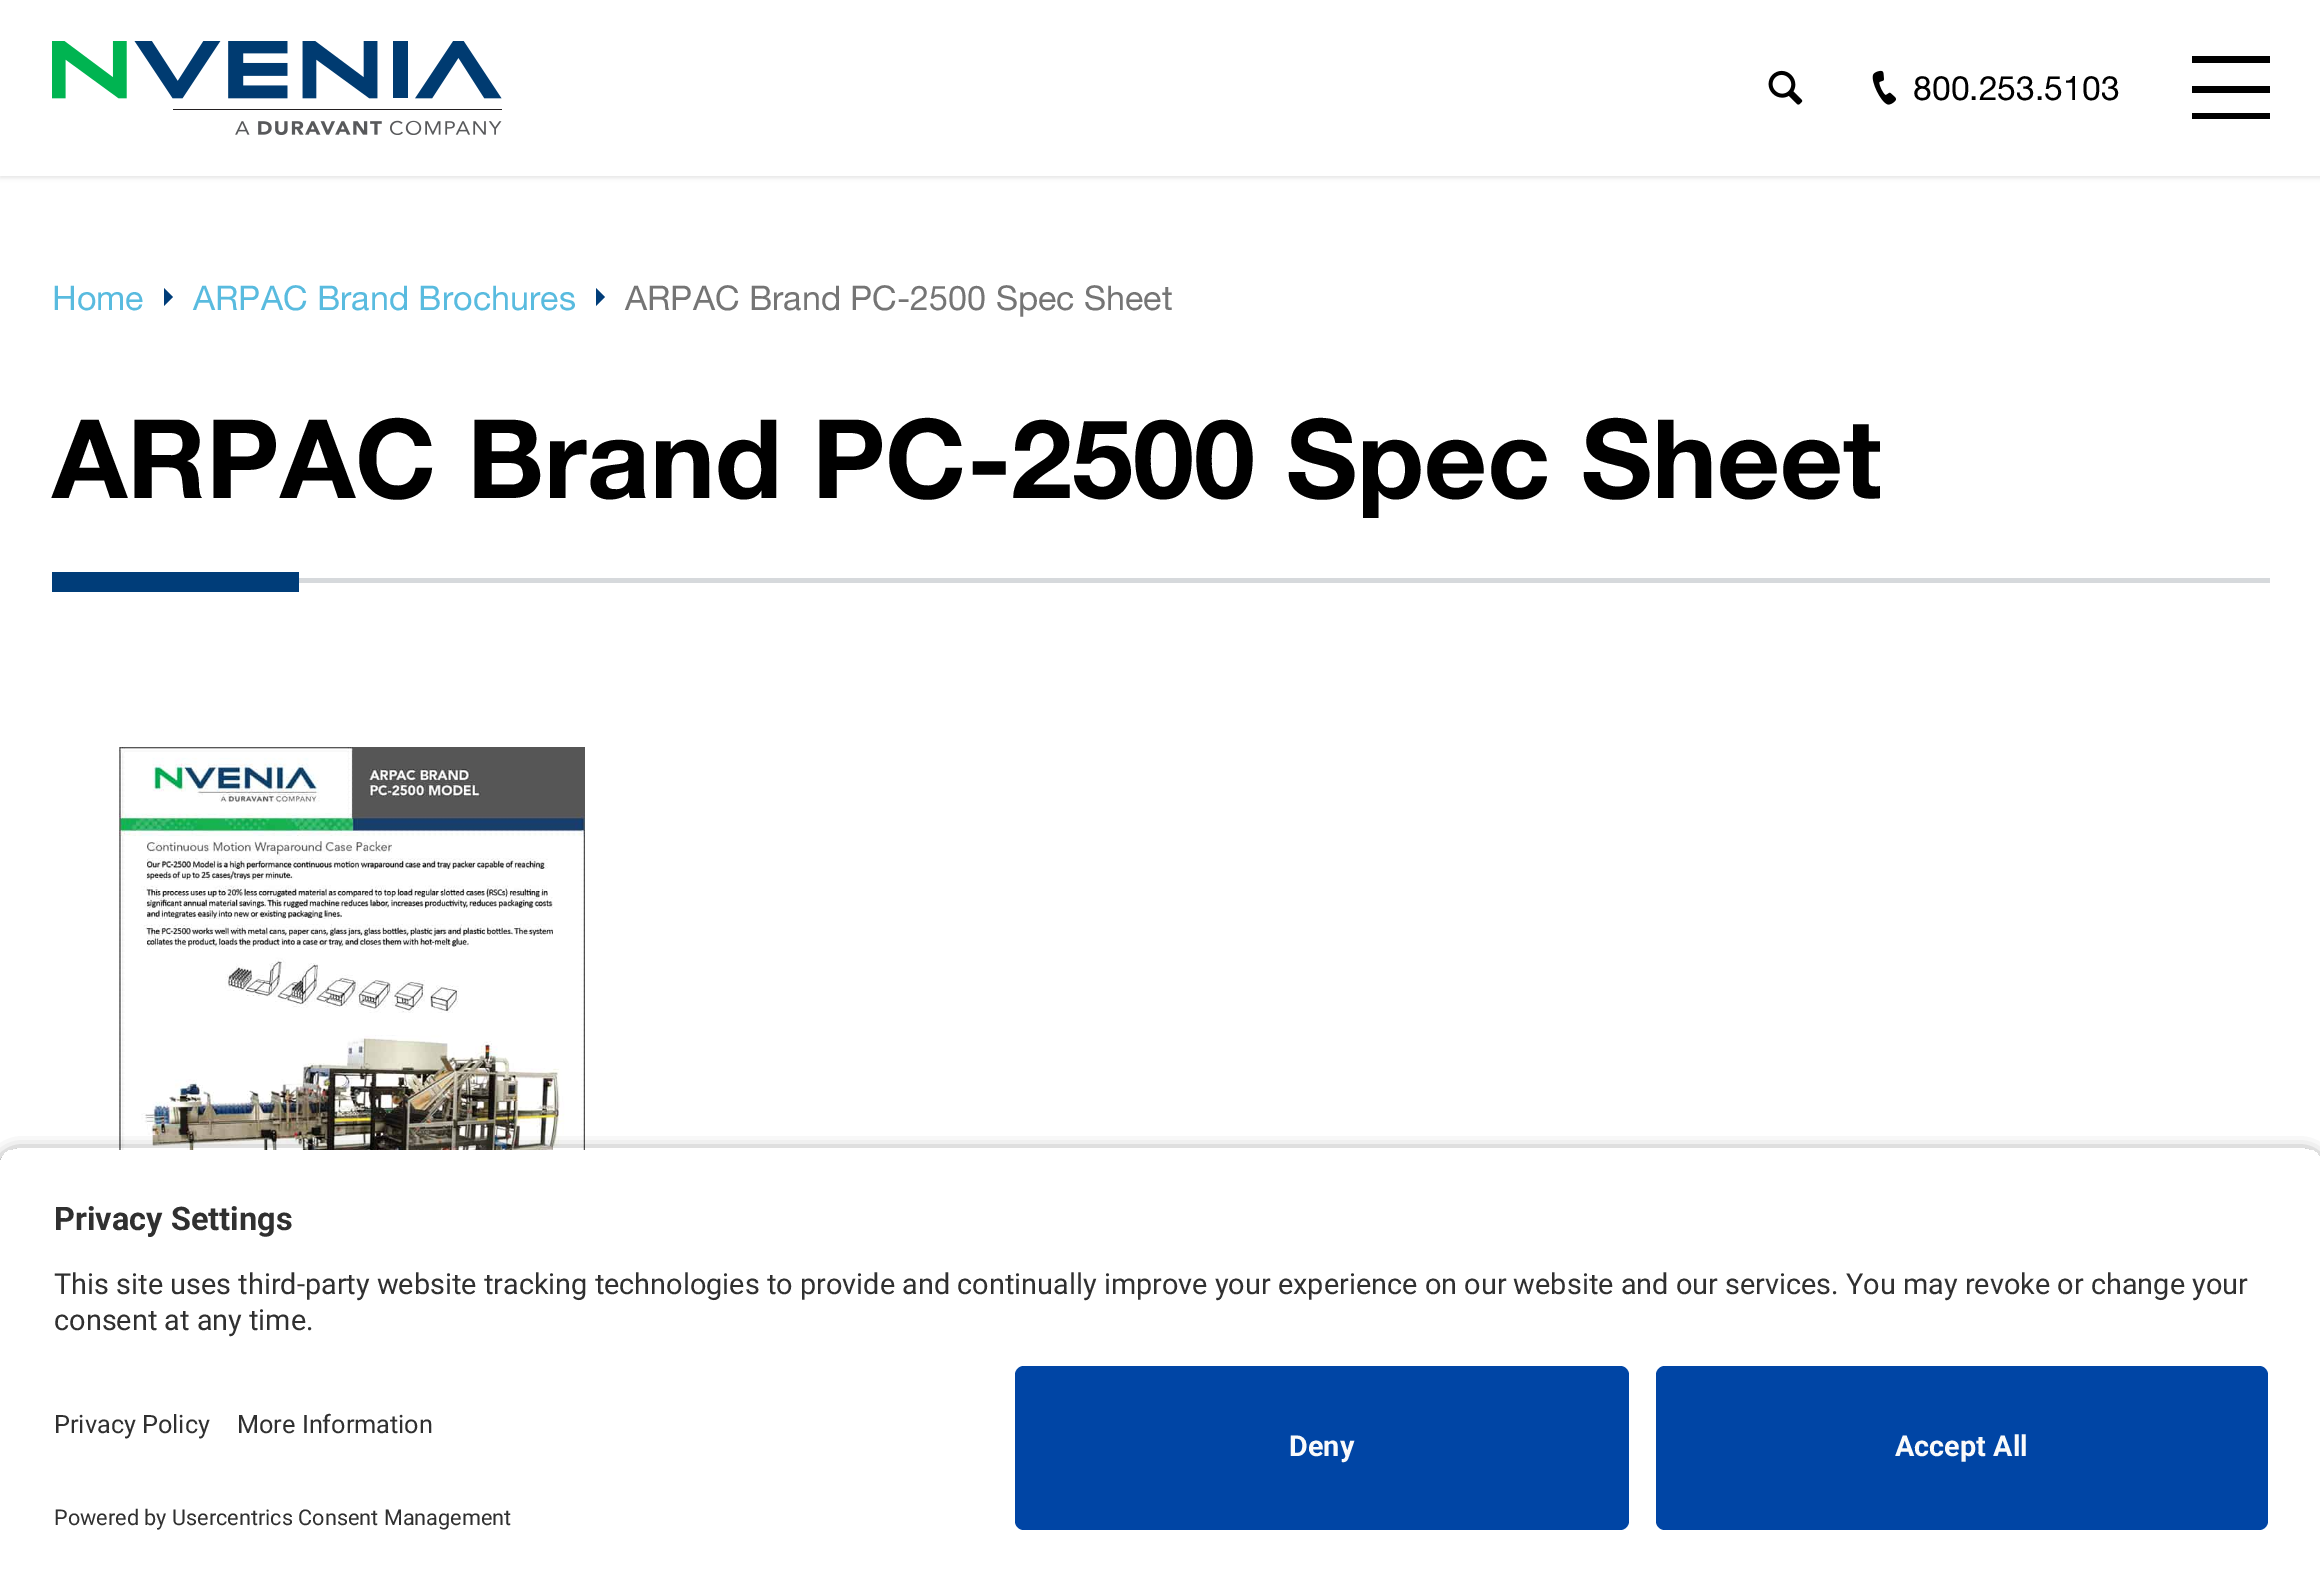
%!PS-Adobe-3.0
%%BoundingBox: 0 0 2320 1584
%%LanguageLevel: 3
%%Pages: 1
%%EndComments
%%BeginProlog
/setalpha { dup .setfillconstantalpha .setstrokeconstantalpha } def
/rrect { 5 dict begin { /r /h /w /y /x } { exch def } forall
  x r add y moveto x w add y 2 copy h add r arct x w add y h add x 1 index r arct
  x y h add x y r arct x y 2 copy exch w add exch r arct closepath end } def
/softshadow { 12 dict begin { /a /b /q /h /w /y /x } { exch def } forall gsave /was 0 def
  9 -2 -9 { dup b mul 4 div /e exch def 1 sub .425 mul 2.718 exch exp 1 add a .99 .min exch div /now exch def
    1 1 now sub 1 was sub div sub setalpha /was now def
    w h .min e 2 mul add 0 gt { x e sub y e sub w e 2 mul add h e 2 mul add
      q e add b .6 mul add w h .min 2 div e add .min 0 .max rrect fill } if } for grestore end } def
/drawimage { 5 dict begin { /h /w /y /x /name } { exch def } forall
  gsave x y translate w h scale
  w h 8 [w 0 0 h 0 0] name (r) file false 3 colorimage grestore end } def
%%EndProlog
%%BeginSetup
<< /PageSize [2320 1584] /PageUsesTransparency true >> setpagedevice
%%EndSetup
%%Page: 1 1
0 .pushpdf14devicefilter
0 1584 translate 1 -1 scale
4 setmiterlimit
1 setgray
0 0 2320 1584 rectfill
0 setgray
0 2 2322 176 0 2 0.1 softshadow
1 setgray
0 0 2320 176 rectfill
(images/1.raw) 52 41 450 94 drawimage
(images/2.raw) 1768 70 35 35 drawimage
(images/3.raw) 1872 70 24 35 drawimage
0 setgray
2192 56 78 7 rectfill
2192 86 78 7 rectfill
2192 113 78 6 rectfill
0 0.239 0.475 setrgbcolor
newpath 164 306 moveto 164 288 lineto 173 297 lineto closepath fill
newpath 596 306 moveto 596 288 lineto 605 297 lineto closepath fill
52 572 247 20 rectfill
0.839 0.851 0.863 setrgbcolor
299 578 1971 5 rectfill
(images/4.raw) 119 747 466 403 drawimage
gsave
newpath 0 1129 moveto 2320 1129 lineto 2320 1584 lineto 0 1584 lineto closepath 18 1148 moveto 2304 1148 lineto 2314 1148 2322 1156 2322 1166 curveto 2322 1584 lineto 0 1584 lineto 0 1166 lineto 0 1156 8 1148 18 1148 curveto closepath eoclip newpath
0 setgray
0 1154 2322 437 18 8 0.8 softshadow
grestore
gsave
newpath 18 1148 moveto 2304 1148 lineto 2314 1148 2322 1156 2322 1166 curveto 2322 1348 lineto 0 1348 lineto 0 1166 lineto 0 1156 8 1148 18 1148 curveto closepath clip newpath
1 setgray
0 1150 2320 198 rectfill
grestore
0 0.271 0.647 setrgbcolor
1015 1366 614 164 9 rrect fill
1656 1366 612 164 9 rrect fill
/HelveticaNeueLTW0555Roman-Regular [33.75 0 0 -33.75 0 0] selectfont
0 setgray
1913 100 moveto (800.253.5103) show
/HelveticaNeueLTW0555Roman-Regular [34.1 0 0 -34.1 0 0] selectfont
0.349 0.733 0.875 setrgbcolor
52 310 moveto (Home) show
193 310 moveto (ARPAC Brand Brochures) show
0.459 setgray
625 310 moveto (ARPAC Brand PC-2500 Spec Sheet) show
/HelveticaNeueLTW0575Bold-Bold [109.75 0 0 -109.75 0 0] selectfont
0 setgray
52 498 moveto (ARPAC Brand PC-2500 Spec Sheet) show
/Roboto-Bold [32.5 0 0 -32.5 0 0] selectfont
0.188 setgray
54 1230 moveto (Privacy Settings) show
/Roboto-Regular [28.87 0 0 -28.87 0 0] selectfont
54 1294 moveto (This site uses third-party website tracking technologies to provide and continually improve your experience on our website and our services. You may revoke or change your) show
54 1330 moveto (consent at any time.) show
/Roboto-Regular [25.25 0 0 -25.25 0 0] selectfont
54 1433 moveto (Privacy Policy) show
237 1433 moveto (More Information) show
/Roboto-Regular [21.65 0 0 -21.65 0 0] selectfont
54 1525 moveto (Powered by Usercentrics Consent Management) show
/Roboto-Bold [28.87 0 0 -28.87 0 0] selectfont
0.98 setgray
1289 1456 moveto (Deny) show
1895 1456 moveto (Accept All) show
.poppdf14devicefilter showpage
%%EOF
